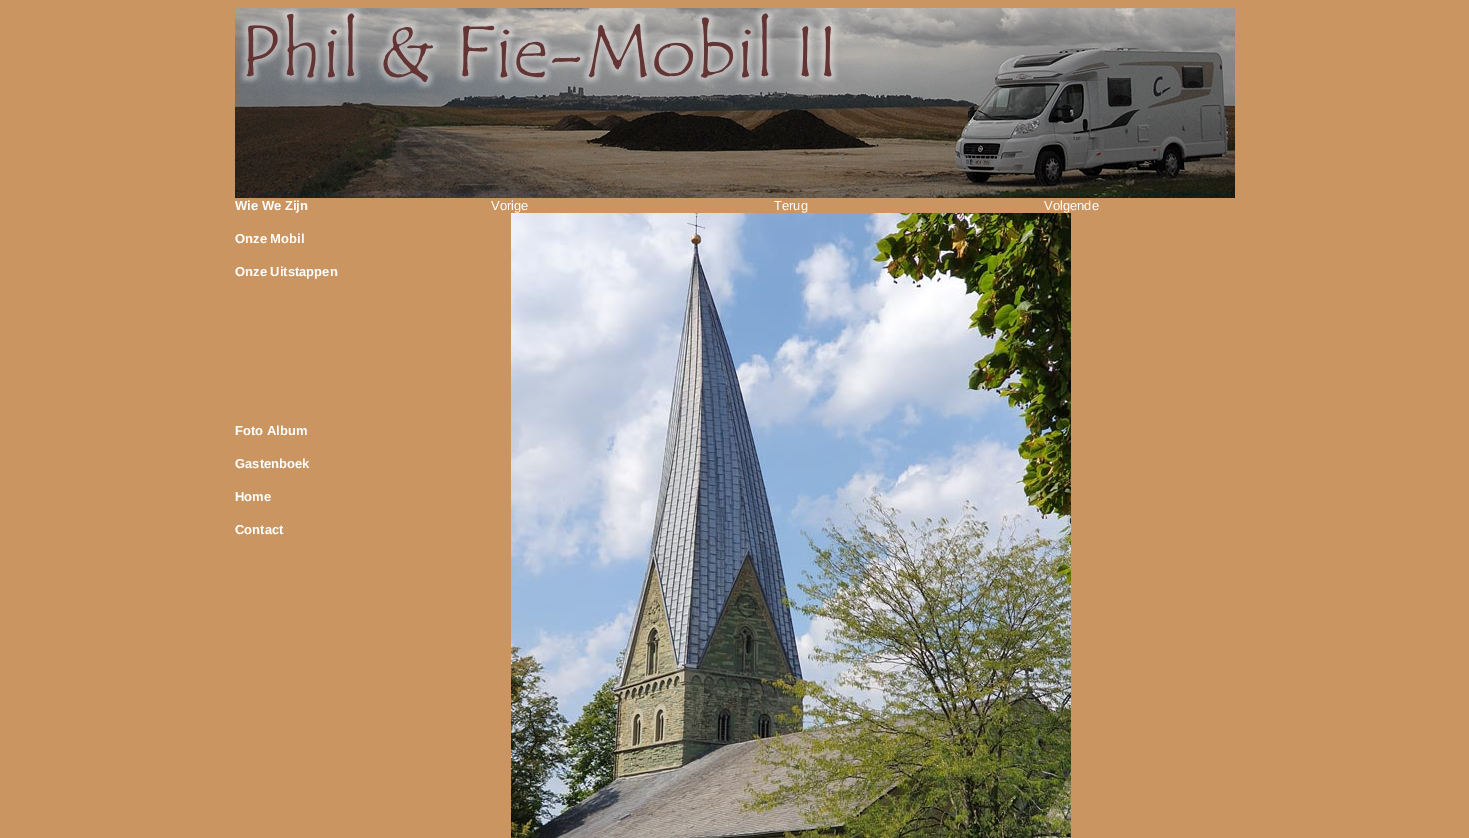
%!PS
<< /PageSize [1469 838] >> setpagedevice
/C { dup -16 bitshift 255 div exch dup -8 bitshift 255 and 255 div exch 255 and 255 div setrgbcolor } def
/F { [ exch dup neg 0 0 3 -1 roll 0 0 ] selectfont } def
/T { moveto show } def
/R { rectfill } def
/I { 5 dict begin { /h /w /y /x /name } { exch def } forall
  gsave x y translate w h scale
  w h 8 [w 0 0 h 0 0] name (r) file false 3 colorimage grestore end } def
0 838 translate 1 -1 scale
4 setmiterlimit
16#CA9560 C
0 0 1469 838 R
(1.rgb) 235 8 1000 190 I
/LiberationSans-Bold 13 F
16#FFFFFF C
(Wie We Zijn) 235 210 T
(Onze Mobil) 235 243 T
(Onze Uitstappen) 235 276 T
(Foto Album) 235 435 T
(Gastenboek) 235 468 T
(Home) 235 501 T
(Contact) 235 534 T
/LiberationSans-Regular 13 F
(Vorige) 491 210 T
(Terug) 774 210 T
(Volgende) 1044 210 T
(2.rgb) 511 213 560 625 I
showpage
